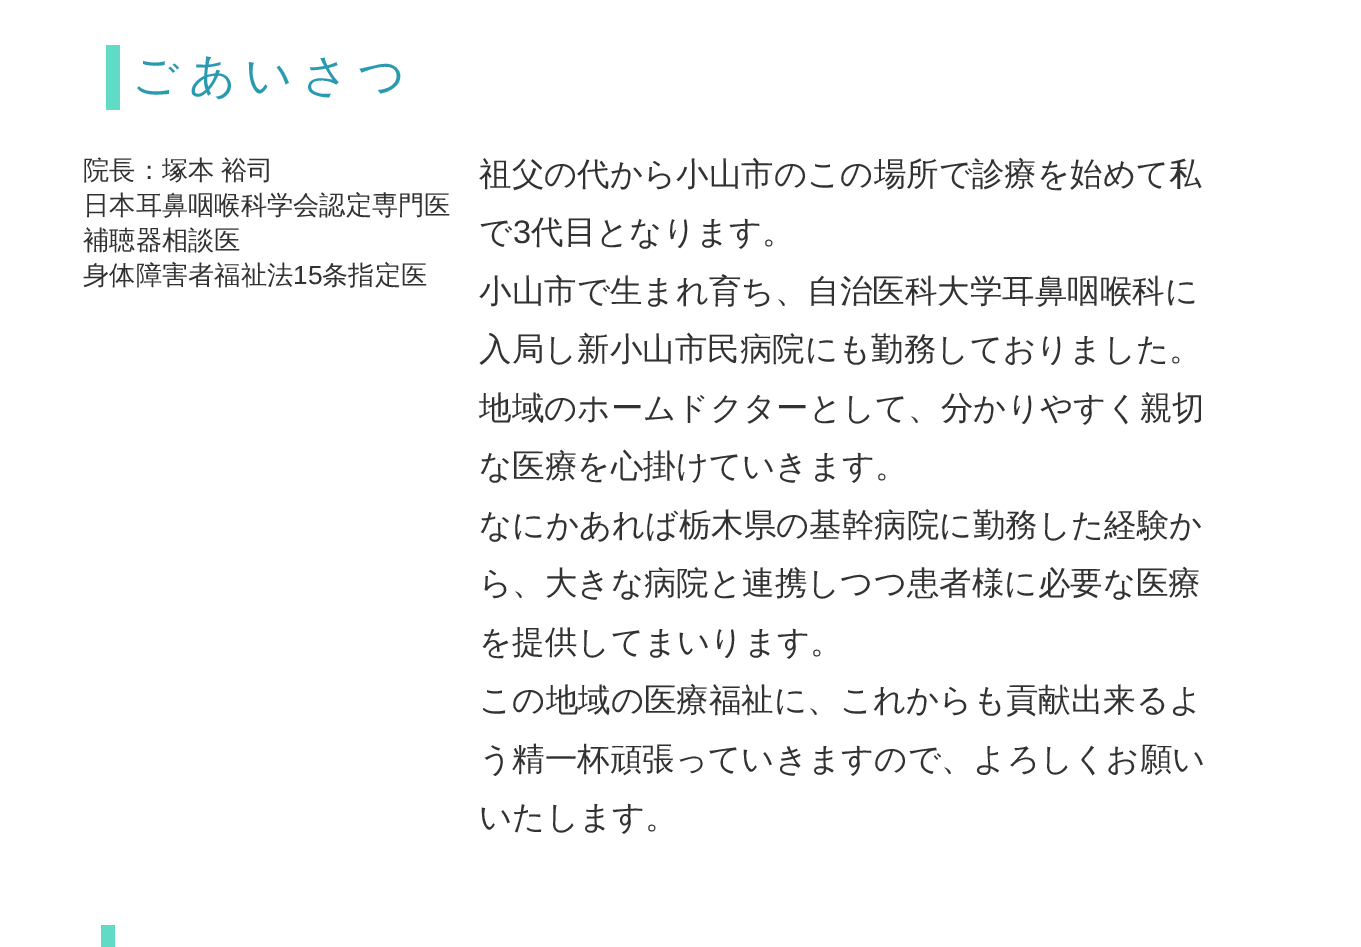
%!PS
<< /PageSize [1361 947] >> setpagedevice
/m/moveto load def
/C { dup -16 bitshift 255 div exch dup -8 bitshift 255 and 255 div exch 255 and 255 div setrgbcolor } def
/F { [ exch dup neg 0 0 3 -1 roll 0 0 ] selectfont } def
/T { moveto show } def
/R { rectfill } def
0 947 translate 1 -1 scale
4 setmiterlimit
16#FFFFFF C
0 0 1361 947 R
16#60DBC5 C
106 45 14 65 R
/WenQuanYiZenHei-Medium 46.25 F
16#2A9AB0 C
132 91 m 9.25 0 (ごあいさつ) ashow
/WenQuanYiZenHei-Medium 26.25 F
16#323232 C
83 179 m -1 0 32 (院長：塚本 裕司) widthshow
(日本耳鼻咽喉科学会認定専門医) 83 214 T
(補聴器相談医) 83 249 T
(身体障害者福祉法) 83 284 T
/LiberationSans-Regular 26.25 F
(15) 293 284 T
/WenQuanYiZenHei-Medium 26.25 F
(条指定医) 322 284 T
/WenQuanYiZenHei-Medium 32.5 F
(祖父の代から小山市のこの場所で診療を始めて私) 479 185 T
(で) 479 243 T
/LiberationSans-Regular 32.5 F
(3) 513 243 T
/WenQuanYiZenHei-Medium 32.5 F
(代目となります。) 531 243 T
(小山市で生まれ育ち、自治医科大学耳鼻咽喉科に) 479 302 T
(入局し新小山市民病院にも勤務しておりました。) 479 360 T
(地域のホームドクターとして、分かりやすく親切) 479 419 T
(な医療を心掛けていきます。) 479 477 T
(なにかあれば栃木県の基幹病院に勤務した経験か) 479 536 T
(ら、大きな病院と連携しつつ患者様に必要な医療) 479 594 T
(を提供してまいります。) 479 653 T
(この地域の医療福祉に、これからも貢献出来るよ) 479 711 T
(う精一杯頑張っていきますので、よろしくお願い) 479 770 T
(いたします。) 479 828 T
16#60DBC5 C
101 925 14 22 R
showpage
